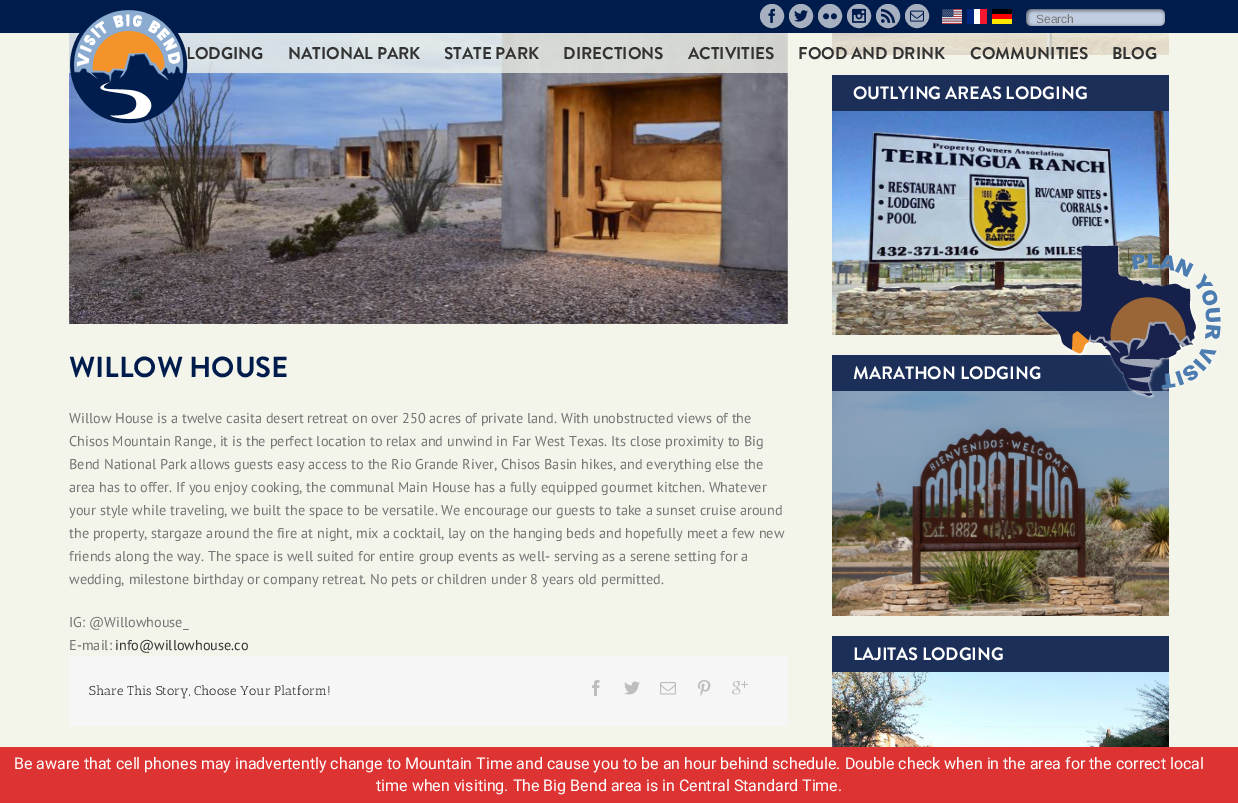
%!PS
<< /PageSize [1238 803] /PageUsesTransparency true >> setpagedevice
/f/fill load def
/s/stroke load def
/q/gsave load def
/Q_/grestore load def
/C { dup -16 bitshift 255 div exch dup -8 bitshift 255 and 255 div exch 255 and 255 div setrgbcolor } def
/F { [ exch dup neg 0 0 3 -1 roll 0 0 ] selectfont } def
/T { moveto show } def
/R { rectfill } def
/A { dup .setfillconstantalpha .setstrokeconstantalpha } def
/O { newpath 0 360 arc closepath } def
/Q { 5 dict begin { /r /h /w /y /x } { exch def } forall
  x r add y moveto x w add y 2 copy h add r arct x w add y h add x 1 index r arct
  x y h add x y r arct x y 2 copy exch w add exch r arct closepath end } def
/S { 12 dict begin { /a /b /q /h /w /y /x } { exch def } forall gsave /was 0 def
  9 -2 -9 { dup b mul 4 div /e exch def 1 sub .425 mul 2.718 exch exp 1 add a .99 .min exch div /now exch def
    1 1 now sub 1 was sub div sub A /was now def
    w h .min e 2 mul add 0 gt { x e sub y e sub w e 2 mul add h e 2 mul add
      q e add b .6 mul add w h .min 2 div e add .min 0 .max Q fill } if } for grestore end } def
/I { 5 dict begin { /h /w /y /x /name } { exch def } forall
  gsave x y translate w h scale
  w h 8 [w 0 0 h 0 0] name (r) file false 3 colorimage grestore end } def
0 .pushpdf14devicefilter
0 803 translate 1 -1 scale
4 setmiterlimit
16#F3F5EB C
0 0 1238 803 R
16#001C4C C
0 0 1238 33 R
16#000000 C
760 5 24 24 12 .5 .2 S
16#A6B0C1 C
772 16 11.5 O q f Q_
s
(1.rgb) 768 8 8 15 I
16#000000 C
789 5 24 24 12 .5 .2 S
16#A6B0C1 C
801 16 11.5 O q f Q_
s
(2.rgb) 794 10 14 12 I
16#000000 C
818 5 24 24 12 .5 .2 S
16#A6B0C1 C
830 16 11.5 O q f Q_
s
(3.rgb) 823 13 14 7 I
16#000000 C
847 5 24 24 12 .5 .2 S
16#A6B0C1 C
859 16 11.5 O q f Q_
s
(4.rgb) 852 8 14 15 I
16#000000 C
876 5 24 24 12 .5 .2 S
16#A6B0C1 C
888 16 11.5 O q f Q_
s
(5.rgb) 881 8 14 15 I
16#000000 C
905 5 24 24 12 .5 .2 S
16#A6B0C1 C
917 16 11.5 O q f Q_
s
(6.rgb) 910 10 14 12 I
(7.rgb) 942 9 20 15 I
16#FFFFFF C
974 9 6 15 R
16#00267F C
967 9 7 15 R
16#F31830 C
980 9 7 15 R
16#FFE600 C
992 19 20 5 R
16#000000 C
992 9 20 5 R
16#FF0000 C
992 14 20 5 R
(8.rgb) 1026 9 139 17 I
/LiberationSans-Regular 12 F
16#747474 C
(Search) 1036 23 T
(10.rgb) 69 33 719 291 I
(16.rgb) 832 33 337 22 I
0.75 A
16#F3F5EB C
69 33 1100 40 R
/BrandonGrotesque-Bold 17 F
1 A
16#333333 C
(LODGING) 186 59 T
(9.rgb) 70 10 118 114 I
(NATIONAL PARK) 288 59 T
(STATE PARK) 444 59 T
(DIRECTIONS) 563 59 T
(ACTIVITIES) 688 59 T
(FOOD AND DRINK) 798 59 T
(COMMUNITIES) 970 59 T
(BLOG) 1112 59 T
/BrandonGrotesque-Bold 29 F
16#001C4C C
(WILLOW HOUSE) 69 377 T
/PTSans-Regular 14.3 F
16#747474 C
(Willow House is a twelve casita desert retreat on over 250 acres of private land. With unobstructed views of the) 69 423 T
(Chisos Mountain Range, it is the perfect location to relax and unwind in Far West Texas. Its close proximity to Big) 69 446 T
(Bend National Park allows guests easy access to the Rio Grande River, Chisos Basin hikes, and everything else the) 69 469 T
(area has to offer. If you enjoy cooking, the communal Main House has a fully equipped gourmet kitchen. Whatever) 69 492 T
(your style while traveling, we built the space to be versatile. We encourage our guests to take a sunset cruise around) 69 515 T
(the property, stargaze around the fire at night, mix a cocktail, lay on the hanging beds and hopefully meet a few new) 69 538 T
(friends along the way. The space is well suited for entire group events as well- serving as a serene setting for a) 69 561 T
(wedding, milestone birthday or company retreat. No pets or children under 8 years old permitted.) 69 584 T
(IG: @Willowhouse_) 69 627 T
(E-mail:) 69 650 T
16#333333 C
(info@willowhouse.co) 115 650 T
16#F6F6F6 C
69 656 719 70 R
/AnticSlab-Regular 13 F
16#333333 C
(Share This Story, Choose Your Platform!) 89 695 T
(11.rgb) 592 680 8 16 I
(12.rgb) 624 681 16 14 I
(13.rgb) 660 682 16 13 I
(14.rgb) 697 680 14 16 I
(15.rgb) 732 681 16 14 I
16#1B2F58 C
832 75 337 36 R
/BrandonGrotesque-Bold 18 F
16#FFFFFF C
(OUTLYING AREAS LODGING) 853 99 T
(17.rgb) 832 111 337 224 I
16#1B2F58 C
832 355 337 36 R
16#FFFFFF C
(MARATHON LODGING) 853 379 T
(18.rgb) 832 391 337 225 I
16#1B2F58 C
832 636 337 36 R
16#FFFFFF C
(LAJITAS LODGING) 853 660 T
(19.rgb) 832 672 337 75 I
(20.rgb) 1036 244 185 155 I
16#DD3333 C
0 747 1238 56 R
/Roboto-Regular 16 F
16#FFFFFF C
(Be aware that cell phones may inadvertently change to Mountain Time and cause you to be an hour behind schedule. Double check when in the area for the correct local) 14 769 T
(time when visiting. The Big Bend area is in Central Standard Time.) 376 791 T
.poppdf14devicefilter showpage
